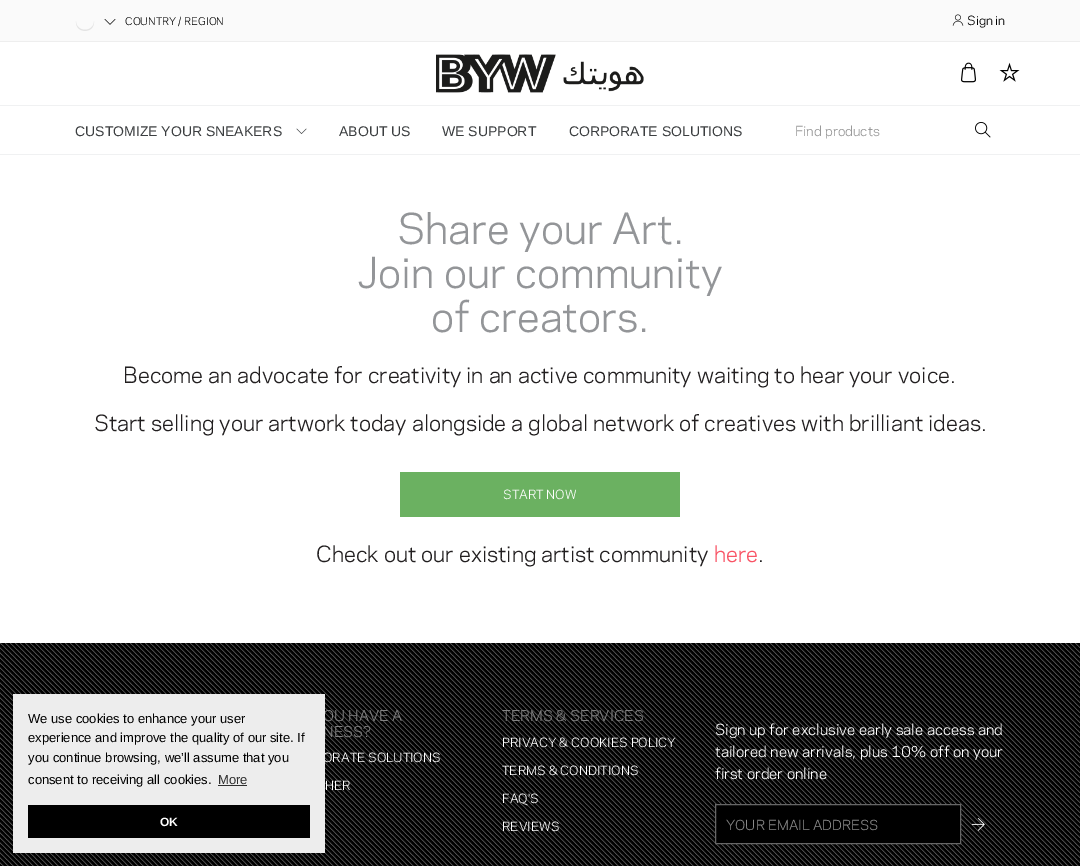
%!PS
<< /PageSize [1080 866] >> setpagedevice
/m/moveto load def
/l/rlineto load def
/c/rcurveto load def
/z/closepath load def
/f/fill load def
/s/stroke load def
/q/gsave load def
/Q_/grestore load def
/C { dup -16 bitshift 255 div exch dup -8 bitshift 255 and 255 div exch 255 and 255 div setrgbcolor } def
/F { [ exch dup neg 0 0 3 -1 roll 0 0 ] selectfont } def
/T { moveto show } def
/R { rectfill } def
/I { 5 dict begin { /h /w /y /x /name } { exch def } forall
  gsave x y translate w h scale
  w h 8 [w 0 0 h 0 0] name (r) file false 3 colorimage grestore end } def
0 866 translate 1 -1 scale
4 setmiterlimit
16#FFFFFF C
0 0 1080 866 R
16#FAFAFA C
0 0 1080 41 R
16#EEEEEE C
0 41 1080 1 R
16#E4E4E4 C
94 21.5 m -.5 11 -17.5 11 -18 0 c -.5 12.5 18.5 12.5 18 0 c z f
(1.rgb) 104 19 12 6 I
/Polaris-Regular 10 F
16#000000 C
(COUNTRY / REGION) 125 25 T
(2.rgb) 952 14 12 12 I
/Polaris-Regular 12 F
(Sign in) 967 25 T
(3.rgb) 436 54 208 39 I
(4.rgb) 961 62 15 21 I
(5.rgb) 999 62 21 20 I
16#F0F1F2 C
0 105 1080 1 R
0 154 1080 1 R
/LiberationSans-Regular 14 F
16#3B3E40 C
(CUSTOMIZE YOUR SNEAKERS) 75 136 T
(6.rgb) 296 128 11 6 I
(ABOUT US) 339 136 T
(WE SUPPORT) 442 136 T
(CORPORATE SOLUTIONS) 569 136 T
/Polaris-Regular 13 F
16#999999 C
(Find products) 795 136 T
(7.rgb) 975 122 16 16 I
/Polaris-Regular 40 F
16#939598 C
(Share your Art.) 397 244 T
(Join our community) 358 288 T
(of creators.) 431 332 T
/Polaris-Regular 21 F
16#221F20 C
(Become an advocate for creativity in an active community waiting to hear your voice.) 123 383 T
(Start selling your artwork today alongside a global network of creatives with brilliant ideas.) 94 431 T
16#6BB161 C
400 472 280 45 R
/Polaris-Regular 12 F
16#FFFFFF C
(START NOW) 503 499 T
/Polaris-Regular 21 F
16#221F20 C
(Check out our existing artist community) 316 562 T
16#F95365 C
(here) 714 562 T
16#221F20 C
(.) 758 562 T
(8.rgb) 0 643 1080 223 I
/Polaris-Regular 14 F
16#828282 C
(OU HAVE A) 323 721 T
(NESS?) 323 737 T
/Polaris-Regular 12 F
16#FFFFFF C
(ORATE SOLUTIONS) 323 762 T
(HER) 325 790 T
/Polaris-Regular 14 F
16#828282 C
(TERMS & SERVICES) 502 721 T
/Polaris-Regular 12 F
16#FFFFFF C
(PRIVACY & COOKIES POLICY) 502 747 T
(TERMS & CONDITIONS) 502 775 T
(FAQ'S) 502 803 T
(REVIEWS) 502 831 T
/Polaris-Regular 14.4 F
(Sign up for exclusive early sale access and) 715 735 T
(tailored new arrivals, plus 10% off on your) 715 757 T
(first order online) 715 779 T
16#000000 C
715.5 804.5 m 245 0 l 0 39 l -245 0 l z q f Q_
16#676767 C
s
/Polaris-Regular 13 F
16#8A8A8A C
(YOUR EMAIL ADDRESS) 726 830 T
(9.rgb) 971 818 14 13 I
16#EDEDED C
13 694 312 159 R
/LiberationSans-Regular 13 F
16#000000 C
(We use cookies to enhance your user) 28 723 T
(experience and improve the quality of our site. If) 28 742 T
(you continue browsing, we’ll assume that you) 28 762 T
(consent to receiving all cookies.) 28 784 T
16#2F2F2F C
(More) 218 784 T
218 785 29 1 R
16#000000 C
28 805 282 33 R
/LiberationSans-Bold 12 F
16#FFFFFF C
(OK) 160 826 T
showpage
